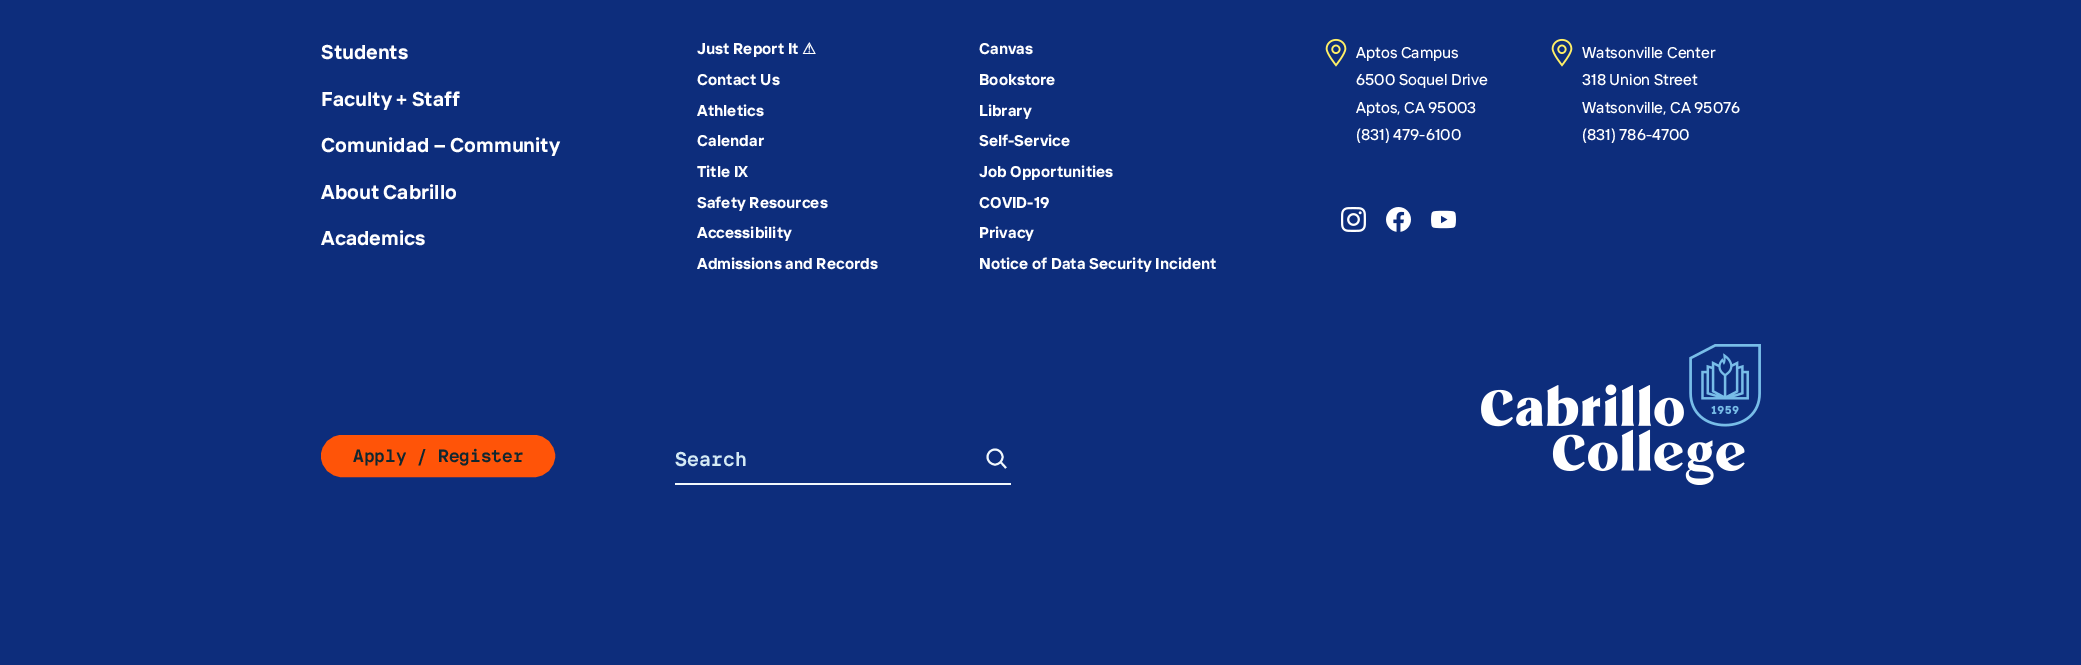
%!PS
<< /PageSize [2081 665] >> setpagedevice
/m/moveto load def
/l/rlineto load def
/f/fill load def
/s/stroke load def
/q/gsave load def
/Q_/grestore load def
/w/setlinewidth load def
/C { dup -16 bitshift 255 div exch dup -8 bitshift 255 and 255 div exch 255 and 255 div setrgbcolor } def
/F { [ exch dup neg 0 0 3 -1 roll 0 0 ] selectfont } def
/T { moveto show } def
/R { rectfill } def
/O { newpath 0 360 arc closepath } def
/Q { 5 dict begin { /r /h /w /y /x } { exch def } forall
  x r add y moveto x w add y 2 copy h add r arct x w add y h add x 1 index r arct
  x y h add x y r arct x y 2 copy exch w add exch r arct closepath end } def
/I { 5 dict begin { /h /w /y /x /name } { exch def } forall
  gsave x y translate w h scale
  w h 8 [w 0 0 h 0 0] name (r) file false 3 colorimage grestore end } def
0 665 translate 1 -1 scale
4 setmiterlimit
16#0D2D7C C
0 0 2081 665 R
/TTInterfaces-Bold 20 F
16#FFFFFF C
(Students) 321 59 T
(Faculty + Staff) 321 106 T
(Comunidad – Community) 321 152 T
(About Cabrillo) 321 199 T
(Academics) 321 245 T
/TTInterfaces-Bold 15.6 F
(Just Report It) 697 54 T
/DejaVuSans-Bold 15.6 F
(⚠) 802 54 T
/TTInterfaces-Bold 15.6 F
(Canvas) 979 54 T
(Contact Us) 697 85 T
(Bookstore) 979 85 T
(Athletics) 697 116 T
(Library) 979 116 T
(Calendar) 697 146 T
(Self-Service) 979 146 T
(Title IX) 697 177 T
(Job Opportunities) 979 177 T
(Safety Resources) 697 208 T
(COVID-19) 979 208 T
(Accessibility) 697 238 T
(Privacy) 979 238 T
(Admissions and Records) 697 269 T
(Notice of Data Security Incident) 979 269 T
(1.rgb) 1325 38 22 29 I
/TTInterfaces-Medium 15.6 F
(Aptos Campus) 1356 58 T
(6500 Soquel Drive) 1356 85 T
(Aptos, CA 95003) 1356 113 T
(\(831\) 479-6100) 1356 140 T
(1.rgb) 1551 38 22 29 I
(Watsonville Center) 1582 58 T
(318 Union Street) 1582 85 T
(Watsonville, CA 95076) 1582 113 T
(\(831\) 786-4700) 1582 140 T
(2.rgb) 1341 207 25 25 I
(3.rgb) 1386 207 25 25 I
(4.rgb) 1431 210 25 19 I
16#FF5408 C
322 436 232 40 20 Q q f Q_
2 w
s
/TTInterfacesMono-Bold 17.75 F
16#102730 C
(Apply / Register) 353 462 T
16#F1F8FD C
675 483 336 2 R
/TTInterfacesMono-Bold 20 F
16#D3E9F4 C
(Search) 675 466 T
16#F1F8FD C
1.9 w
995 457 7.5 O s
1001 462.5 m 5 5.5 l s
(5.rgb) 1481 344 280 141 I
showpage
